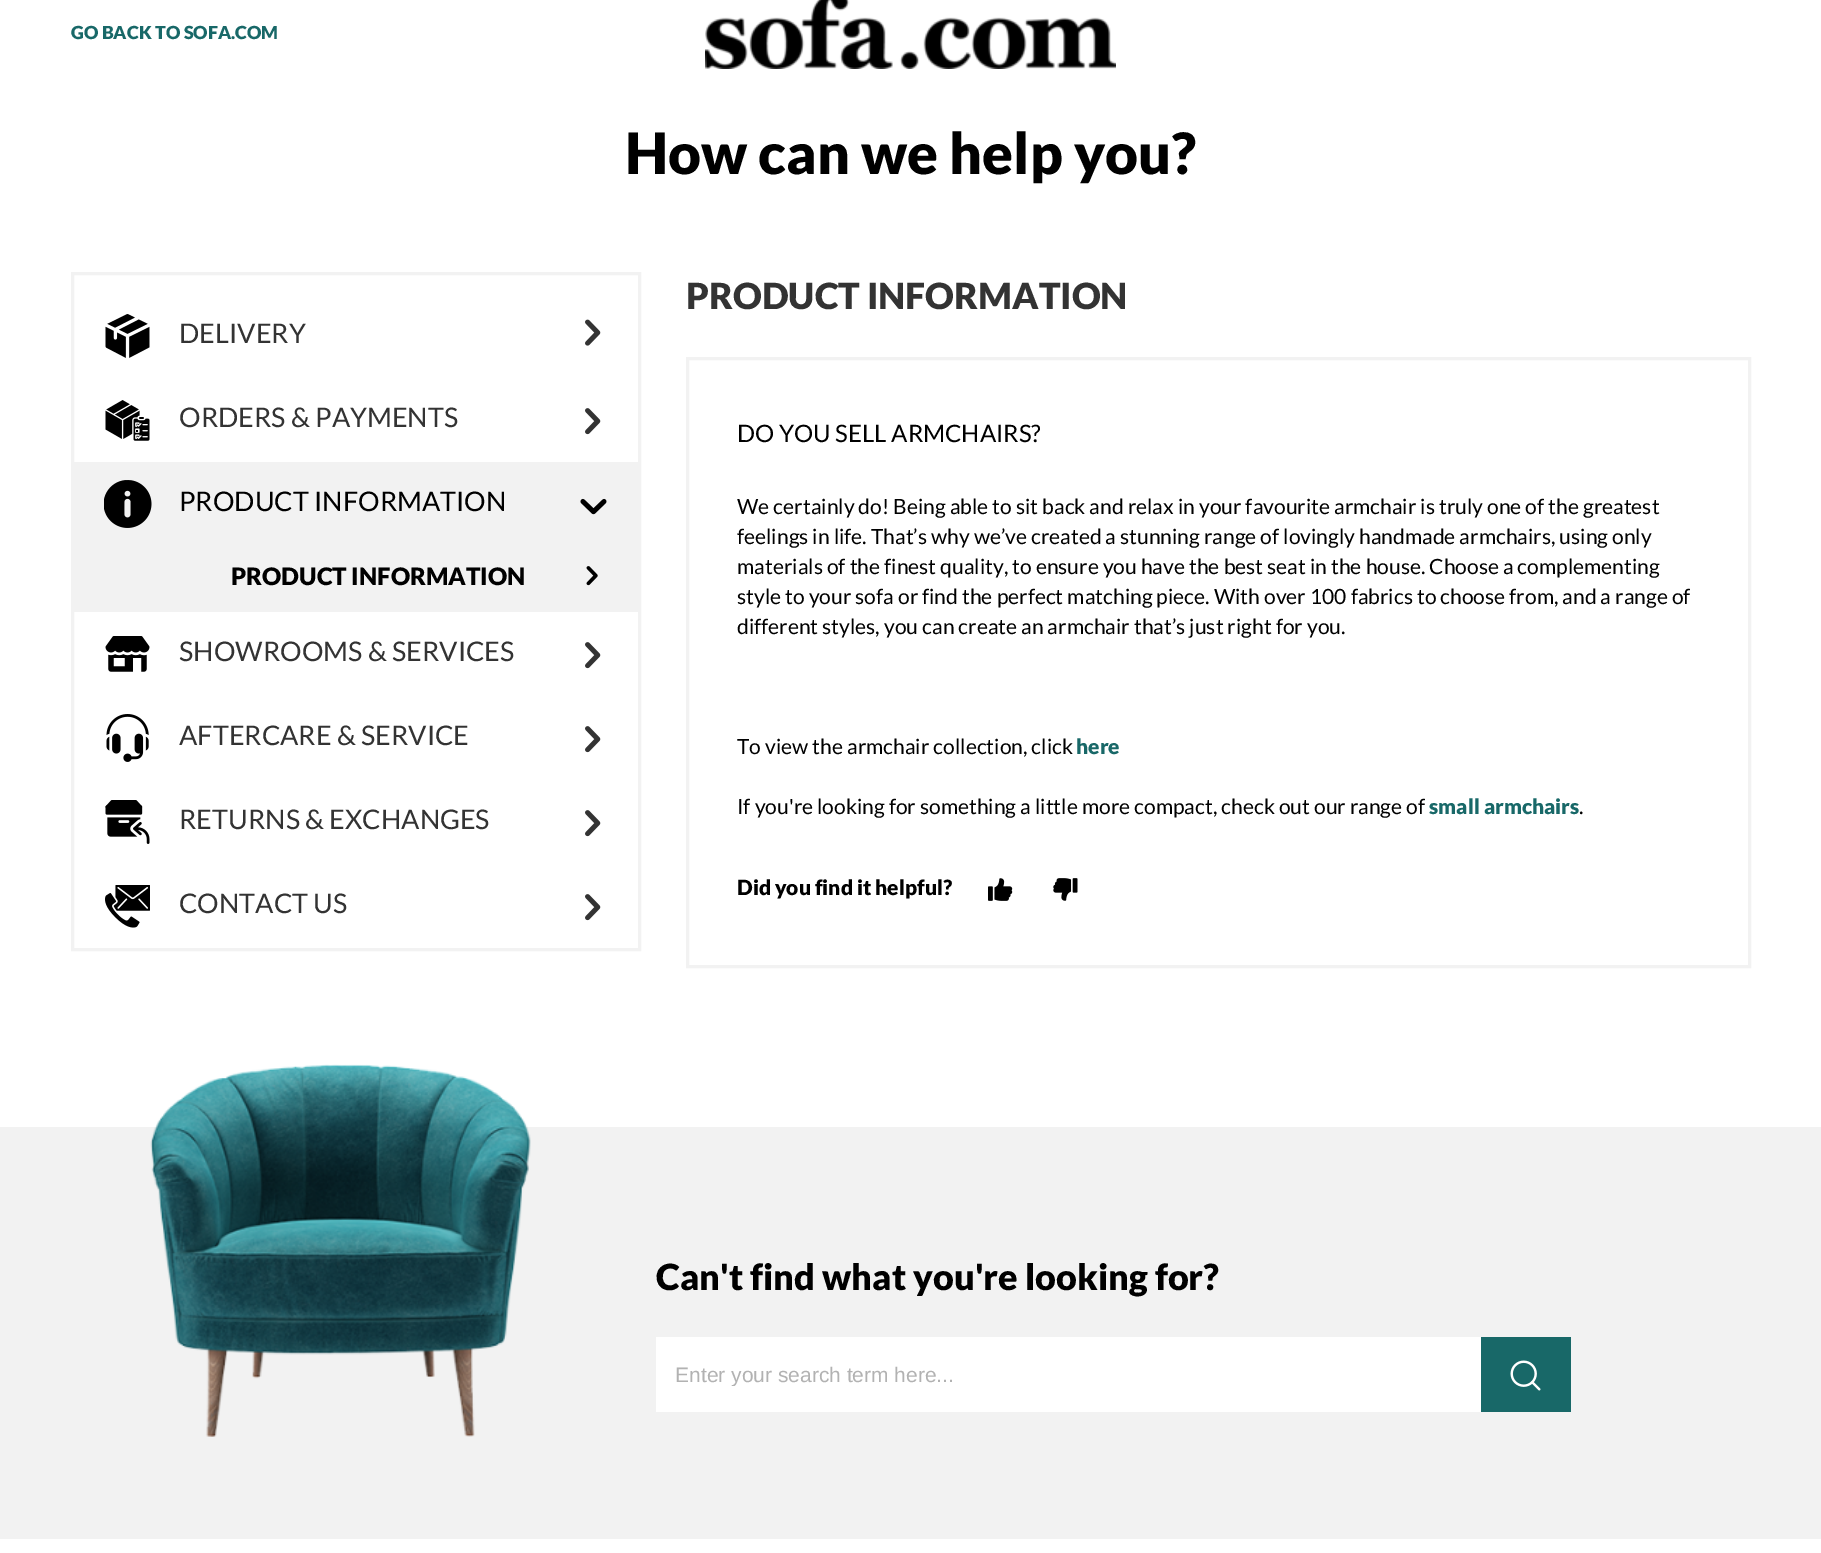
%!PS
<< /PageSize [1821 1553] >> setpagedevice
/q/gsave load def
/Q_/grestore load def
/w/setlinewidth load def
/C { dup -16 bitshift 255 div exch dup -8 bitshift 255 and 255 div exch 255 and 255 div setrgbcolor } def
/F { [ exch dup neg 0 0 3 -1 roll 0 0 ] selectfont } def
/T { moveto show } def
/R { rectfill } def
/I { 5 dict begin { /h /w /y /x /name } { exch def } forall
  gsave x y translate w h scale
  w h 8 [w 0 0 h 0 0] name (r) file false 3 colorimage grestore end } def
0 1553 translate 1 -1 scale
4 setmiterlimit
16#FFFFFF C
0 0 1821 1553 R
/Lato-Black 18 F
16#186868 C
(GO BACK TO SOFA.COM) 71 39 T
(1.rgb) 705 0 411 69 I
/Lato-Black 57 F
16#000000 C
(How can we help you?) 625 174 T
16#F2F2F2 C
3 w
72.5 273.5 567 676 rectstroke
(2.rgb) 105 314 45 44 I
/Lato-Regular 27 F
16#333333 C
(DELIVERY) 179 343 T
(3.rgb) 585 319 16 27 I
(4.rgb) 105 400 45 41 I
(ORDERS & PAYMENTS) 179 427 T
(5.rgb) 585 408 16 27 I
16#F2F2F2 C
74 462 564 150 R
(6.rgb) 104 480 48 48 I
16#000000 C
(PRODUCT INFORMATION) 179 511 T
(7.rgb) 580 498 27 17 I
/Lato-Black 24 F
(PRODUCT INFORMATION) 231 585 T
(8.rgb) 586 566 12 20 I
(9.rgb) 105 636 45 36 I
/Lato-Regular 27 F
16#333333 C
(SHOWROOMS & SERVICES) 179 661 T
(5.rgb) 585 642 16 27 I
(10.rgb) 106 714 43 48 I
(AFTERCARE & SERVICE) 179 745 T
(5.rgb) 585 726 16 27 I
(11.rgb) 105 800 45 44 I
(RETURNS & EXCHANGES) 179 829 T
(5.rgb) 585 810 16 27 I
(12.rgb) 105 885 45 43 I
(CONTACT US) 179 913 T
(5.rgb) 585 894 16 27 I
/Lato-Black 36 F
(PRODUCT INFORMATION) 686 309 T
16#F2F2F2 C
687.5 358.5 1062 608 rectstroke
/Lato-Regular 24 F
16#000000 C
(DO YOU SELL ARMCHAIRS?) 737 442 T
/Lato-Regular 21 F
(We certainly do! Being able to sit back and relax in your favourite armchair is truly one of the greatest) 737 514 T
(feelings in life. That’s why we’ve created a stunning range of lovingly handmade armchairs, using only) 737 544 T
(materials of the finest quality, to ensure you have the best seat in the house. Choose a complementing) 737 574 T
(style to your sofa or find the perfect matching piece. With over 100 fabrics to choose from, and a range of) 737 604 T
(different styles, you can create an armchair that’s just right for you.) 737 634 T
(To view the armchair collection, click) 737 754 T
/Lato-Black 21 F
16#186868 C
(here) 1076 754 T
/Lato-Regular 21 F
16#000000 C
(If you're looking for something a little more compact, check out our range of) 737 814 T
/Lato-Black 21 F
16#186868 C
(small armchairs) 1429 814 T
/Lato-Regular 21 F
16#000000 C
(.) 1579 814 T
/Lato-Black 21 F
(Did you find it helpful?) 737 895 T
(13.rgb) 988 878 25 23 I
(14.rgb) 1053 878 25 23 I
16#F2F2F2 C
0 1127 1821 412 R
(15.rgb) 150 1064 381 373 I
/Lato-Black 36 F
16#000000 C
(Can't find what you're looking for?) 656 1290 T
16#FFFFFF C
656 1337 825 75 R
q
675 1362 786 24 rectclip
/LiberationSans-Regular 21 F
16#B2B2B2 C
(Enter your search term here...) 675 1382 T
Q_
16#186868 C
1481 1337 90 75 R
(16.rgb) 1510 1360 31 31 I
showpage
